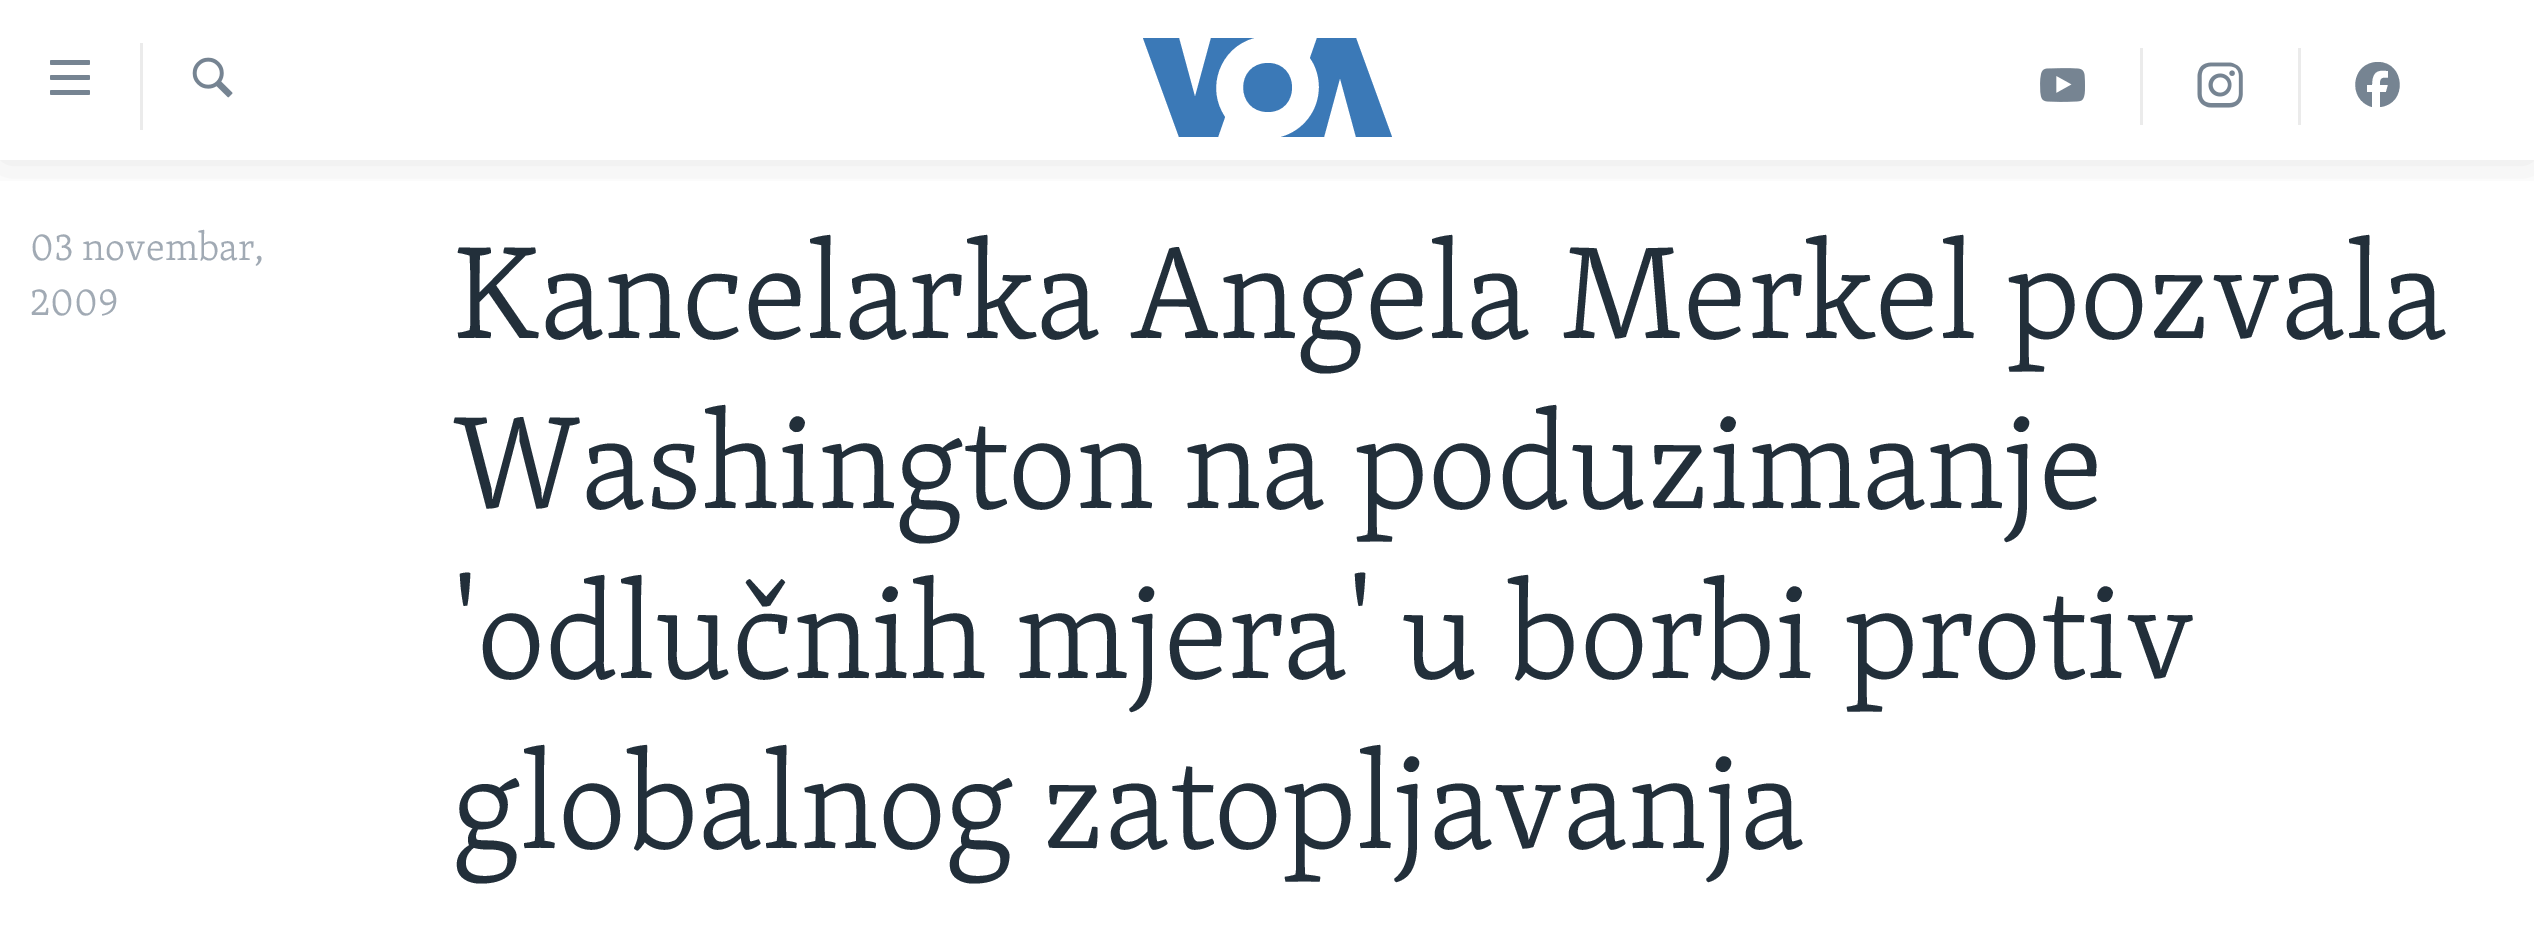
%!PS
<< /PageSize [2534 937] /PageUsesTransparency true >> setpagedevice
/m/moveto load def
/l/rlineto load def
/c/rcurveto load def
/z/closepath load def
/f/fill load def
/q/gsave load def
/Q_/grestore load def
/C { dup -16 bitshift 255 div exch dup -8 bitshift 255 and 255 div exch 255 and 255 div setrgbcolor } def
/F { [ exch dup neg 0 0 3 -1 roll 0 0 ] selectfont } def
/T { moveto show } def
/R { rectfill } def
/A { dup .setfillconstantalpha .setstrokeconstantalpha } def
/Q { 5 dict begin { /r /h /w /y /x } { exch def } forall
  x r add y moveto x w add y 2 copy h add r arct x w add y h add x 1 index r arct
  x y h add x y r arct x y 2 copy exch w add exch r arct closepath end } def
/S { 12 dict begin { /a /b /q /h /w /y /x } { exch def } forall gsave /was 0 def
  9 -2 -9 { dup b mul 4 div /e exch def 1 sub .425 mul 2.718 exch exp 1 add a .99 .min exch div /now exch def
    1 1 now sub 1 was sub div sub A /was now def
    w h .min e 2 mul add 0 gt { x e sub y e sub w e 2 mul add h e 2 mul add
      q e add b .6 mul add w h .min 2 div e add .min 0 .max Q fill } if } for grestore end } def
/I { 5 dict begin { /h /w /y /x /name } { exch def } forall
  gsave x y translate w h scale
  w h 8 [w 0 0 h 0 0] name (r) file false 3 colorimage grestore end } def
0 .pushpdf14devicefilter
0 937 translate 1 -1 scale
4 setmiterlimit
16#FFFFFF C
0 0 2534 937 R
q
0 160 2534 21 rectclip
16#000000 C
0 0 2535 160 0 25 .1 S
Q_
(1.rgb) 50 60 40 35 I
16#EBEBEB C
140 43 3 87 R
(2.rgb) 192 57 41 41 I
16#3B79B7 C
1225 117 m -7 20 l -39 0 l -36 -99 l 36 0 l 16 59 l 16 -59 l 43 0 l -34 9 -49 50 -29 79 c z 1268 63 m -33 0 -33 49 0 49 c 32 0 32 -49 0 -49 c z 1319 87 m 0 24 -16 44 -38 50 c 43 0 l 16 -59 l 16 59 l 36 0 l -36 -99 l -39 0 l -7 20 l 6 8 9 19 9 29 c z f
16#EBEBEB C
2140 48 3 77 R
(3.rgb) 2040 68 45 34 I
2298 48 3 77 R
(4.rgb) 2197 62 46 46 I
16#768492 C
2378 62 m -27 0 -31 38 -6 45 c 0 -15 l -5 0 l 0 -7 l 5 0 l 0 -12 4 -16 16 -14 c 0 7 l -7 -1 -8 1 -8 7 c 8 0 l -2 7 l -6 0 l 0 15 l 28 -3 25 -45 -2 -45 c z f
/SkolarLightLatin-Light 39.5 F
16#A1AAB4 C
(03 novembar,) 30 260 T
(2009) 30 315 T
/SkolarLightLatin-Light 135 F
16#222F3A C
(Kancelarka Angela Merkel pozvala) 453 338 T
(Washington na poduzimanje) 453 508 T
('odlučnih mjera' u borbi protiv) 453 678 T
(globalnog zatopljavanja) 453 848 T
.poppdf14devicefilter showpage
